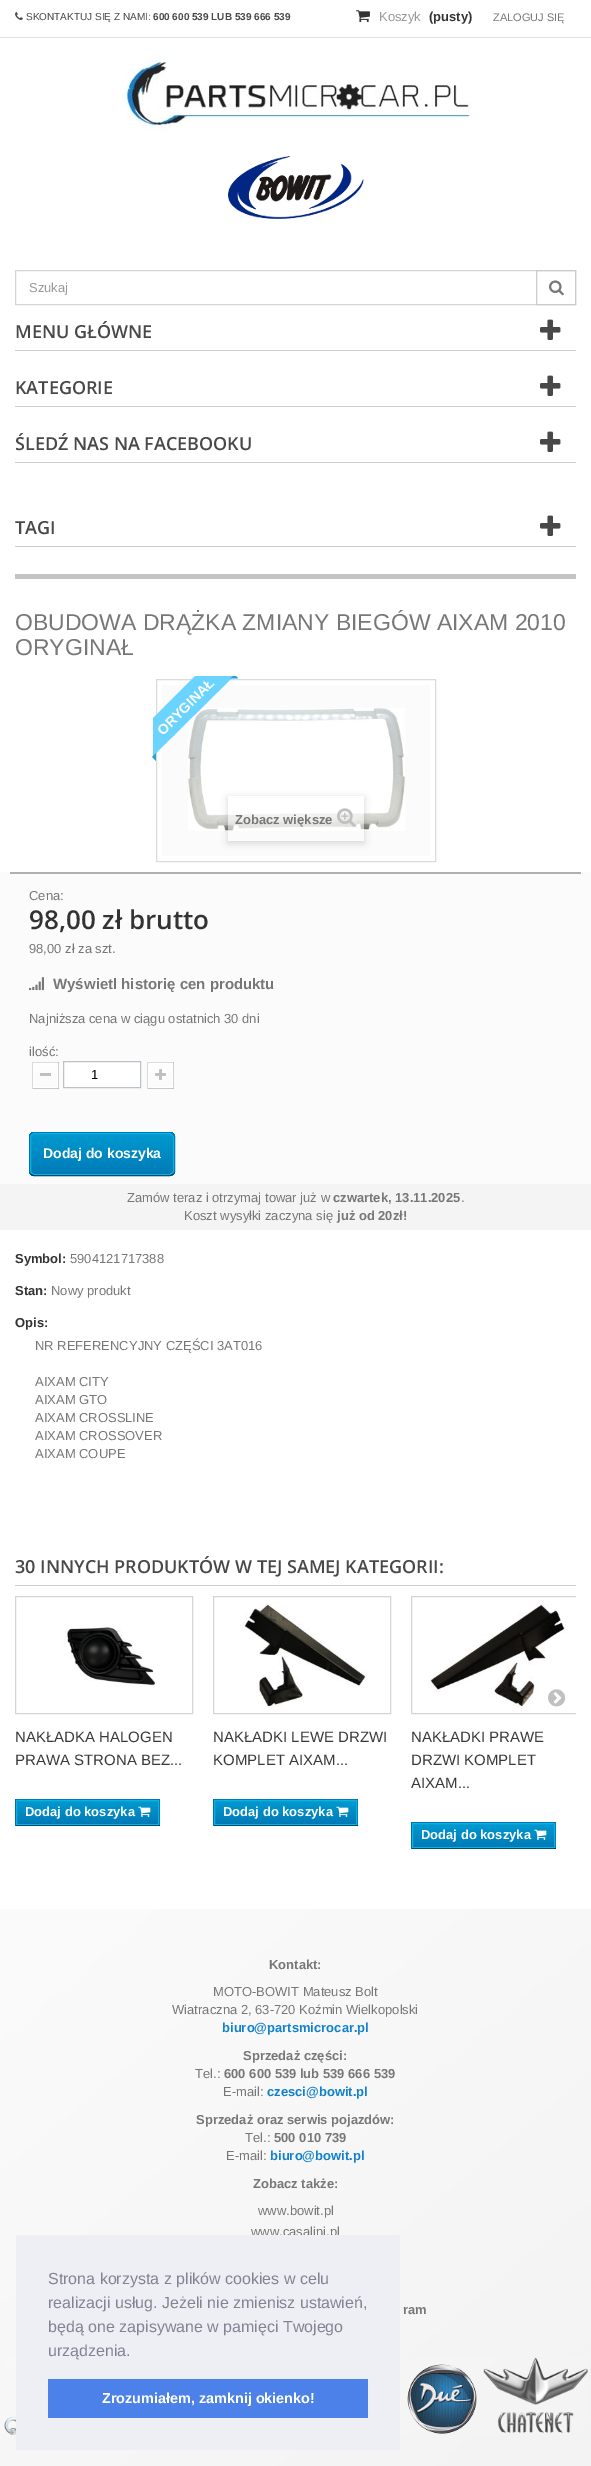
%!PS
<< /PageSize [591 2466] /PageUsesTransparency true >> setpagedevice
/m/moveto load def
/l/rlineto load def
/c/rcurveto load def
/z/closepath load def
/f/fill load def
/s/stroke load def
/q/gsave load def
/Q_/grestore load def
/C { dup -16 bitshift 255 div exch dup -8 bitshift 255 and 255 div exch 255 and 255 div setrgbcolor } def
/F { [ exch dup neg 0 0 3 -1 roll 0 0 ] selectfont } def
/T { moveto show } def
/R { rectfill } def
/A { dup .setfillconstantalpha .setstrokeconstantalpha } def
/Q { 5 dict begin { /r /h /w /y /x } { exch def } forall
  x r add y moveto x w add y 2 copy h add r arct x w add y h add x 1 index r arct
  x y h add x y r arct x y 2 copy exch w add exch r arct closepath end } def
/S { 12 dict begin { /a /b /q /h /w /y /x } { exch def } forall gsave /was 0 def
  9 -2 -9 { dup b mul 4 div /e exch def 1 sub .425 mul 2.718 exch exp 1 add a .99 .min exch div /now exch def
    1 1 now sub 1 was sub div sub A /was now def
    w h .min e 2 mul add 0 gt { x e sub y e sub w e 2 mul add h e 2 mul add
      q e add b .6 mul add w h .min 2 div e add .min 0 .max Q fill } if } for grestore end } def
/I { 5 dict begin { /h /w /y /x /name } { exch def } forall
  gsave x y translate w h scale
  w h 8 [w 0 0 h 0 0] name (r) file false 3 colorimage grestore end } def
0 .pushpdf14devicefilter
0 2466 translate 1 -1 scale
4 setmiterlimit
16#FFFFFF C
0 0 591 2466 R
16#DDDDDD C
0 37 591 1 R
(1.rgb) 15 12 8 8 I
/LiberationSans-Regular 10 F
16#484848 C
(SKONTAKTUJ SIĘ Z NAMI:) 26 20 T
/LiberationSans-Bold 10 F
(600 600 539 LUB 539 666 539) 153 20 T
(2.rgb) 356 10 14 13 I
/LiberationSans-Regular 13 F
16#999999 C
(Koszyk) 379 21 T
/LiberationSans-Bold 13 F
16#333333 C
(\(pusty\)) 429 21 T
/LiberationSans-Regular 11 F
16#777777 C
(ZALOGUJ SIĘ) 493 21 T
(3.rgb) 126 53 353 80 I
(4.rgb) 228 156 136 63 I
16#D6D4D4 C
15.5 270.5 560 34 rectstroke
/LiberationSans-Regular 13 F
16#999999 C
(Szukaj) 29 292 T
16#CCCCCC C
536.5 270.5 39 34 rectstroke
(5.rgb) 549 280 15 16 I
15 350 561 1 R
/OpenSans-SemiBold 18 F
16#484848 C
(MENU GŁÓWNE) 15 338 T
(6.rgb) 540 319 21 21 I
16#CCCCCC C
15 406 561 1 R
16#484848 C
(KATEGORIE) 15 394 T
(6.rgb) 540 375 21 21 I
16#CCCCCC C
15 462 561 1 R
16#484848 C
(ŚLEDŹ NAS NA FACEBOOKU) 15 450 T
(6.rgb) 540 431 21 21 I
16#CCCCCC C
15 546 561 1 R
16#484848 C
(TAGI) 15 534 T
(6.rgb) 540 515 21 21 I
16#C4C4C4 C
15 574 561 5 R
/LiberationSans-Regular 23 F
16#777777 C
(OBUDOWA DRĄŻKA ZMIANY BIEGÓW AIXAM 2010) 15 630 T
(ORYGINAŁ) 15 655 T
16#DBDBDB C
156.5 679.5 279 182 rectstroke
16#FBFBFB C
162 685 268 171 R
(7.rgb) 188 708 217 123 I
q
153 676 85 85 rectclip
16#6AD4FF C
129 742 m 92 -92 l 19 20 l -92 91 l z f
16#21A3D8 C
238.5 678.5 m -8 0 l 4 -4 l z f
Q_
/LiberationSans-Bold 14 F
16#FFFFFF C
q 163 736 translate -45 rotate 0 0 m (ORYGINAŁ) show Q_
16#21A3D8 C
156 753 m 0 8 l -4 -4 l z f
q
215 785 m 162 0 l 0 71 l -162 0 l z 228 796 m 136 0 l 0 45 l -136 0 l z eoclip newpath
16#000000 C
228 798 136 45 0 4 .16 S
Q_
0.5 A
16#FFFFFF C
228 813 136 18 R
/LiberationSans-Bold 13 F
1 A
16#777777 C
(Zobacz większe) 235 824 T
(8.rgb) 337 808 19 19 I
16#FBFBFB C
0 872 591 312 R
16#B0AFAF C
10 872 571 2 R
/LiberationSans-Regular 13 F
16#777777 C
(Cena:) 29 900 T
/OpenSans-SemiBold 26 F
16#333333 C
(98,00 zł brutto) 29 929 T
/LiberationSans-Regular 13 F
16#777777 C
(98,00 zł za szt.) 29 953 T
(9.rgb) 29 977 15 14 I
/LiberationSans-Bold 15 F
(Wyświetl historię cen produktu) 53 989 T
/LiberationSans-Regular 13 F
(Najniższa cena w ciągu ostatnich 30 dni) 29 1023 T
(ilość:) 29 1056 T
16#DEDCDC C
32 1062 27 1 R
16#C1BFBF C
58 1062 1 27 R
16#B5B4B4 C
32 1088 27 1 R
16#DAD8D8 C
32 1062 1 27 R
q 34 1064 m 23 0 l 0 9 l -23 0 l z clip newpath
<< /ShadingType 2 /ColorSpace /DeviceRGB /Coords [46 1064 46 1087] /Extend [true true] /Function << /FunctionType 2 /Domain [0 1] /C0 [1 1 1] /C1 [.984 .984 .984] /N 1 >> >> shfill Q_
16#FFFFFF C
33.5 1063.5 24 24 rectstroke
16#C0C0C0 C
40 1073 11 3 R
16#FFFFFF C
63.5 1061.5 m 77 0 l 0 26 l -77 0 l z q f Q_
16#BDC2C9 C
s
16#000000 C
(1) 91 1079 T
16#DEDCDC C
147 1062 27 1 R
16#C1BFBF C
173 1062 1 27 R
16#B5B4B4 C
147 1088 27 1 R
16#DAD8D8 C
147 1062 1 27 R
q 149 1064 m 23 0 l 0 9 l -23 0 l z clip newpath
<< /ShadingType 2 /ColorSpace /DeviceRGB /Coords [161 1064 161 1087] /Extend [true true] /Function << /FunctionType 2 /Domain [0 1] /C0 [1 1 1] /C1 [.984 .984 .984] /N 1 >> >> shfill Q_
16#FFFFFF C
148.5 1063.5 24 24 rectstroke
(10.rgb) 155 1069 11 11 I
q
29 1132 146 44 5 Q clip newpath
q 29 1132 m 146 0 l 0 1 l -146 0 l z clip newpath
<< /ShadingType 2 /ColorSpace /DeviceRGB /Coords [102 1091 102 1133] /Extend [true true] /Function << /FunctionType 2 /Domain [0 1] /C0 [0 .604 .816] /C1 [0 .478 .718] /N 1 >> >> shfill Q_
q 29 1133 m 146 0 l 0 42 l -146 0 l z clip newpath
<< /ShadingType 2 /ColorSpace /DeviceRGB /Coords [102 1133 102 1175] /Extend [true true] /Function << /FunctionType 2 /Domain [0 1] /C0 [0 .604 .816] /C1 [0 .478 .718] /N 1 >> >> shfill Q_
q 29 1175 m 146 0 l 0 1 l -146 0 l z clip newpath
<< /ShadingType 2 /ColorSpace /DeviceRGB /Coords [102 1175 102 1217] /Extend [true true] /Function << /FunctionType 2 /Domain [0 1] /C0 [0 .604 .816] /C1 [0 .478 .718] /N 1 >> >> shfill Q_
Q_
16#0079B6 C
31 1134 m 3 -1.5 l 136.5 0 l 2.5 1.5 l s
16#006FA8 C
173 1134 m 1 .5 1.5 2 1.5 3 c 0 34 l 0 1 -.5 2.5 -1.5 3 c s
16#012740 C
173 1174 m -3 1.5 l -136.5 0 l -2.5 -1.5 l s
16#006FA8 C
31 1174 m -1 -.5 -1.5 -2 -1.5 -3 c 0 -34 l 0 -1 .5 -2.5 1.5 -3 c s
16#06B2E6 C
30.5 1133.5 143 41 4.5 Q s
/LiberationSans-Bold 14 F
16#FFFFFF C
(Dodaj do koszyka) 43 1158 T
16#F4F4F4 C
0 1184 591 46 R
/LiberationSans-Regular 13 F
16#777777 C
(Zamów teraz i otrzymaj towar już w) 127 1202 T
/LiberationSans-Bold 13 F
(czwartek, 13.11.2025) 333 1202 T
/LiberationSans-Regular 13 F
(.) 461 1202 T
(Koszt wysyłki zaczyna się) 184 1220 T
/LiberationSans-Bold 13 F
(już od 20zł!) 337 1220 T
16#333333 C
(Symbol:) 15 1263 T
/LiberationSans-Regular 13 F
16#777777 C
(5904121717388) 70 1263 T
/LiberationSans-Bold 13 F
16#333333 C
(Stan:) 15 1295 T
/LiberationSans-Regular 13 F
16#777777 C
(Nowy produkt) 51 1295 T
/LiberationSans-Bold 13 F
16#333333 C
(Opis:) 15 1327 T
/LiberationSans-Regular 13 F
16#777777 C
(NR REFERENCYJNY CZĘŚCI 3AT016) 35 1350 T
(AIXAM CITY) 35 1386 T
(AIXAM GTO) 35 1404 T
(AIXAM CROSSLINE) 35 1422 T
(AIXAM CROSSOVER) 35 1440 T
(AIXAM COUPE) 35 1458 T
16#CCCCCC C
15 1585 561 1 R
/OpenSans-SemiBold 18 F
16#484848 C
(30 INNYCH PRODUKTÓW W TEJ SAMEJ KATEGORII:) 15 1573 T
q
15 1555 561 304 rectclip
16#D6D4D4 C
411.5 1596.5 177 117 rectstroke
Q_
(15.rgb) 428 1603 138 105 I
(11.rgb) 548 1689 18 18 I
16#D6D4D4 C
15.5 1596.5 177 117 rectstroke
(12.rgb) 63 1624 93 63 I
/LiberationSans-Regular 15 F
16#3A3939 C
(NAKŁADKA HALOGEN) 15 1742 T
(PRAWA STRONA BEZ...) 15 1765 T
16#0079B6 C
15 1799 145 1 R
16#006FA8 C
159 1799 1 27 R
16#012740 C
15 1825 145 1 R
16#006FA8 C
15 1799 1 27 R
q 17 1801 m 141 0 l 0 23 l -141 0 l z clip newpath
<< /ShadingType 2 /ColorSpace /DeviceRGB /Coords [88 1801 88 1824] /Extend [true true] /Function << /FunctionType 2 /Domain [0 1] /C0 [0 .604 .816] /C1 [0 .478 .718] /N 1 >> >> shfill Q_
16#06B2E6 C
16.5 1800.5 142 24 rectstroke
/LiberationSans-Bold 13 F
16#FFFFFF C
(Dodaj do koszyka) 25 1816 T
(13.rgb) 138 1806 13 11 I
16#D6D4D4 C
213.5 1596.5 177 117 rectstroke
(14.rgb) 240 1602 128 106 I
/LiberationSans-Regular 15 F
16#3A3939 C
(NAKŁADKI LEWE DRZWI) 213 1742 T
(KOMPLET AIXAM...) 213 1765 T
16#0079B6 C
213 1799 145 1 R
16#006FA8 C
357 1799 1 27 R
16#012740 C
213 1825 145 1 R
16#006FA8 C
213 1799 1 27 R
q 215 1801 m 141 0 l 0 23 l -141 0 l z clip newpath
<< /ShadingType 2 /ColorSpace /DeviceRGB /Coords [286 1801 286 1824] /Extend [true true] /Function << /FunctionType 2 /Domain [0 1] /C0 [0 .604 .816] /C1 [0 .478 .718] /N 1 >> >> shfill Q_
16#06B2E6 C
214.5 1800.5 142 24 rectstroke
/LiberationSans-Bold 13 F
16#FFFFFF C
(Dodaj do koszyka) 223 1816 T
(13.rgb) 336 1806 13 11 I
/LiberationSans-Regular 15 F
16#3A3939 C
(NAKŁADKI PRAWE) 411 1742 T
(DRZWI KOMPLET) 411 1765 T
(AIXAM...) 411 1788 T
16#0079B6 C
411 1822 145 1 R
16#006FA8 C
555 1822 1 27 R
16#012740 C
411 1848 145 1 R
16#006FA8 C
411 1822 1 27 R
q 413 1824 m 141 0 l 0 23 l -141 0 l z clip newpath
<< /ShadingType 2 /ColorSpace /DeviceRGB /Coords [484 1824 484 1847] /Extend [true true] /Function << /FunctionType 2 /Domain [0 1] /C0 [0 .604 .816] /C1 [0 .478 .718] /N 1 >> >> shfill Q_
16#06B2E6 C
412.5 1823.5 142 24 rectstroke
/LiberationSans-Bold 13 F
16#FFFFFF C
(Dodaj do koszyka) 421 1839 T
(13.rgb) 534 1829 13 11 I
q 0 1909 m 591 0 l 0 557 l -591 0 l z clip newpath
<< /ShadingType 2 /ColorSpace /DeviceRGB /Coords [559 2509 32 1882] /Extend [true true] /Function << /FunctionType 2 /Domain [0 1] /C0 [.953 .953 .953] /C1 [.984 .984 .984] /N 1 >> >> shfill Q_
16#777777 C
(Kontakt:) 269 1969 T
/LiberationSans-Regular 13 F
(MOTO-BOWIT Mateusz Bolt) 213 1996 T
(Wiatraczna 2, 63-720 Koźmin Wielkopolski) 172 2014 T
/LiberationSans-Bold 13 F
16#1081CF C
(biuro@partsmicrocar.pl) 222 2032 T
16#777777 C
(Sprzedaż części:) 243 2060 T
/LiberationSans-Regular 13 F
(Tel.:) 195 2078 T
/LiberationSans-Bold 13 F
(600 600 539 lub 539 666 539) 224 2078 T
/LiberationSans-Regular 13 F
(E-mail:) 223 2096 T
/LiberationSans-Bold 13 F
16#1081CF C
(czesci@bowit.pl) 267 2096 T
16#777777 C
(Sprzedaż oraz serwis pojazdów:) 196 2124 T
/LiberationSans-Regular 13 F
(Tel.:) 245 2142 T
/LiberationSans-Bold 13 F
(500 010 739) 274 2142 T
/LiberationSans-Regular 13 F
(E-mail:) 226 2160 T
/LiberationSans-Bold 13 F
16#1081CF C
(biuro@bowit.pl) 270 2160 T
16#777777 C
(Zobacz także:) 253 2188 T
/LiberationSans-Regular 13 F
(www.bowit.pl) 258 2215 T
(www.casalini.pl) 251 2236 T
/LiberationSans-Bold 13 F
(ram) 403 2314 T
(16.rgb) 4 2357 584 78 I
16#EDEFF5 C
16 2235 384 215 R
/LiberationSans-Regular 16 F
16#838391 C
(Strona korzysta z plików cookies w celu) 48 2284 T
(realizacji usług. Jeżeli nie zmienisz ustawień,) 48 2308 T
(będą one zapisywane w pamięci Twojego) 48 2332 T
(urządzenia.) 48 2356 T
16#4B81E8 C
48 2379 320 39 R
/LiberationSans-Bold 14.4 F
16#FFFFFF C
(Zrozumiałem, zamknij okienko!) 102 2403 T
.poppdf14devicefilter showpage
